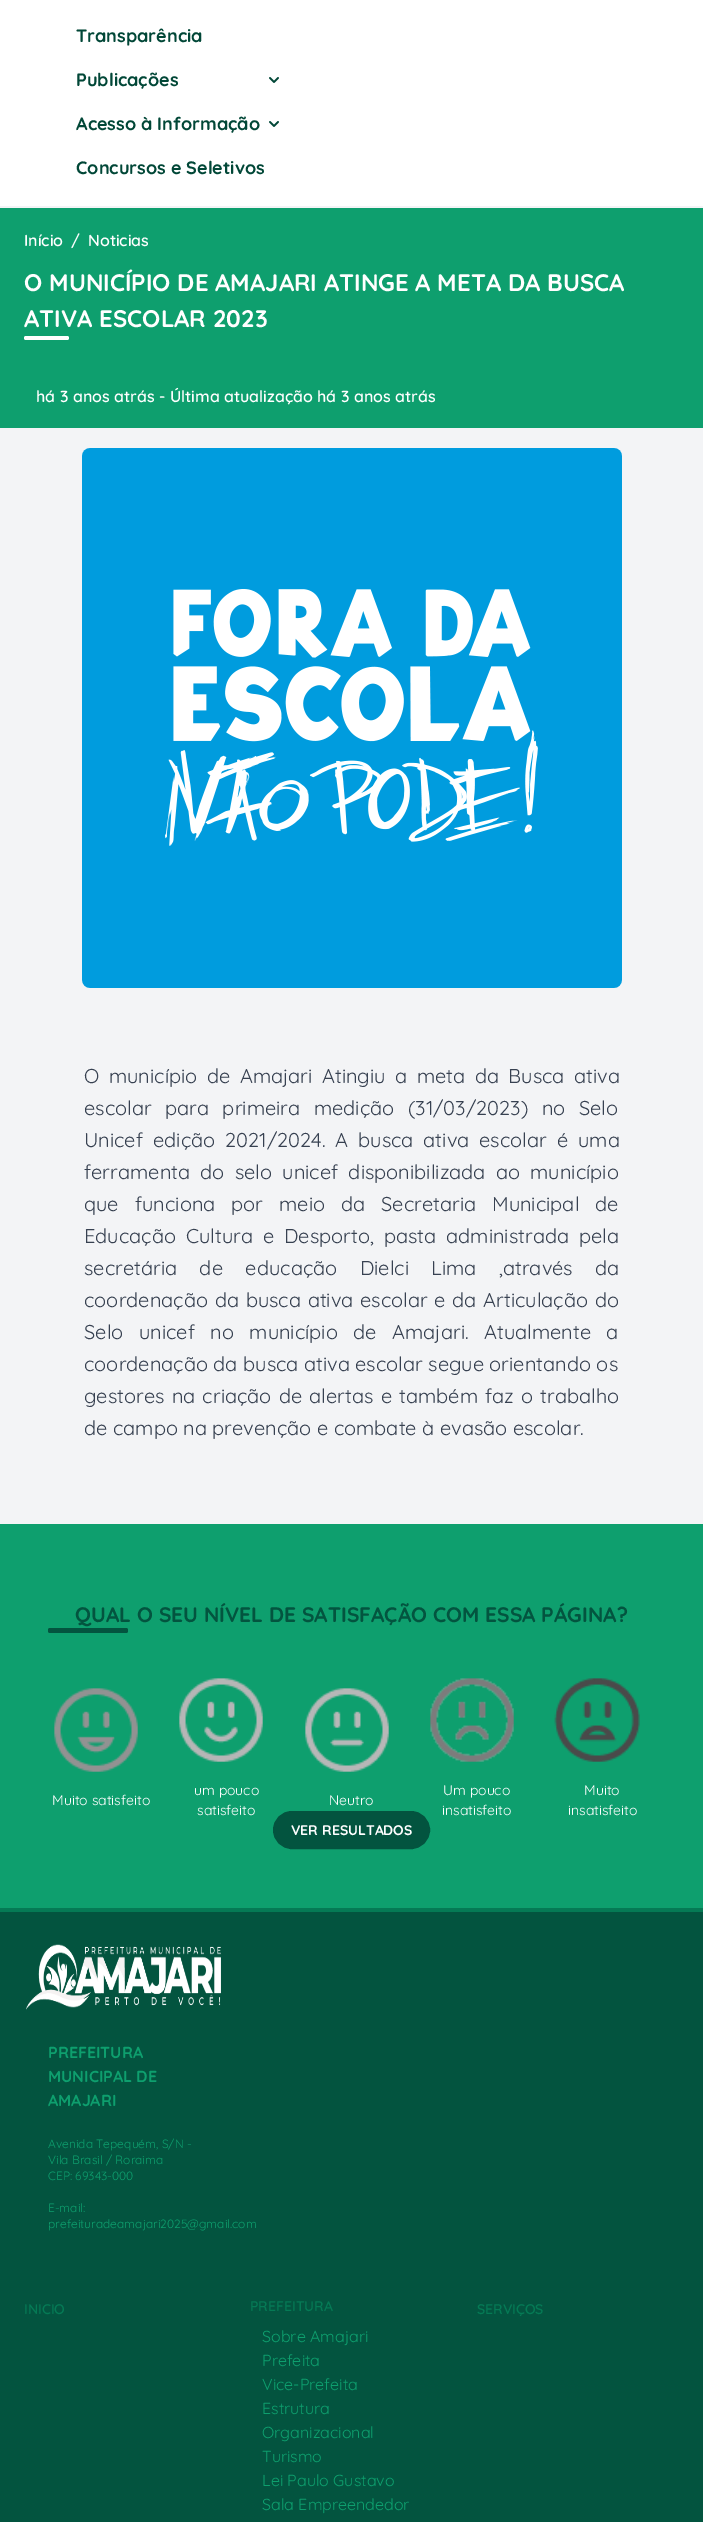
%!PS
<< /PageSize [703 2522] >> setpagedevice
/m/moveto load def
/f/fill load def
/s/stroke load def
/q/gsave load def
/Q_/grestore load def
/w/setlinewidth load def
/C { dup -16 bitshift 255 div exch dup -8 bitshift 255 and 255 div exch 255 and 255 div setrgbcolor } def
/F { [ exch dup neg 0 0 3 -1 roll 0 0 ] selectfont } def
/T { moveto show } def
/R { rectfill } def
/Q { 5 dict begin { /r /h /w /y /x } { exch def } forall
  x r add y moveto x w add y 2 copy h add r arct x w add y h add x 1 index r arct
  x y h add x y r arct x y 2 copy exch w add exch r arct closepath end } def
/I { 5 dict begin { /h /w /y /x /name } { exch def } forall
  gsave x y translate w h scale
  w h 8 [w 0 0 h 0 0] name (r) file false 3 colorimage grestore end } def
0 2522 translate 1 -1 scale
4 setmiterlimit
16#F3F4F6 C
0 0 703 2522 R
16#FFFFFF C
0 0 703 206 R
/Quicksand-Bold 18 F
16#014737 C
(Transparência) 76 42 T
(Publicações) 76 86 T
(1.rgb) 269 77 10 6 I
(Acesso à Informação) 76 130 T
(1.rgb) 269 121 10 6 I
(Concursos e Seletivos) 76 174 T
16#0E9F6E C
0 208 703 220 R
/Quicksand-SemiBold 16 F
16#FFFFFF C
(Início) 24 246 T
(/) 71 246 T
(Noticias) 88 246 T
/Quicksand-Bold 24 F
(O MUNICÍPIO DE AMAJARI ATINGE A META DA BUSCA) 24 291 T
(ATIVA ESCOLAR 2023) 24 327 T
24 336 45 4 2 Q f
/Quicksand-SemiBold 16 F
(há 3 anos atrás - Última atualização há 3 anos atrás) 36 402 T
(2.rgb) 82 448 540 540 I
/Quicksand-Regular 20 F
16#374151 C
84 1083 m 4 0 32 (O município de Amajari Atingiu a meta da Busca ativa) widthshow
84 1115 m 8 0 32 (escolar para primeira medição \(31/03/2023\) no Selo) widthshow
84 1147 m 4.5 0 32 (Unicef edição 2021/2024. A busca ativa escolar é uma) widthshow
84 1179 m 4.75 0 32 (ferramenta do selo unicef disponibilizada ao município) widthshow
84 1211 m 10.5 0 32 (que funciona por meio da Secretaria Municipal de) widthshow
84 1243 m 4.5 0 32 (Educação Cultura e Desporto, pasta administrada pela) widthshow
84 1275 m 17 0 32 (secretária de educação Dielci Lima ,através da) widthshow
84 1307 m 1.25 0 32 (coordenação da busca ativa escolar e da Articulação do) widthshow
84 1339 m 10 0 32 (Selo unicef no município de Amajari. Atualmente a) widthshow
(coordenação da busca ativa escolar segue orientando os) 84 1371 T
84 1403 m 1.75 0 32 (gestores na criação de alertas e também faz o trabalho) widthshow
(de campo na prevenção e combate à evasão escolar.) 84 1435 T
16#0E9F6E C
0 1524 703 384 R
16#057A55 C
0 1908 703 4 R
/Quicksand-Bold 21 F
16#03543F C
(QUAL O SEU NÍVEL DE SATISFAÇÃO COM ESSA PÁGINA?) 75 1622 T
48 1628 80 5 2 Q f
(3.rgb) 54 1688 84 84 I
/Quicksand-Regular 14 F
16#FFFFFF C
(Muito satisfeito) 52 1805 T
(4.rgb) 179 1678 84 84 I
(um pouco) 194 1795 T
(satisfeito) 197 1815 T
(5.rgb) 305 1688 84 84 I
(Neutro) 329 1805 T
(6.rgb) 430 1678 84 84 I
(Um pouco) 443 1795 T
(insatisfeito) 442 1815 T
(7.rgb) 554 1678 86 84 I
(Muito) 584 1795 T
(insatisfeito) 568 1815 T
16#03543F C
274 1812 155 36 18 Q q f Q_
2 w
s
/Quicksand-Bold 14 F
16#FFFFFF C
(VER RESULTADOS) 291 1835 T
16#03543F C
0 1912 703 610 R
(8.rgb) 26 1944 195 66 I
/Quicksand-Bold 16 F
16#0E9F6E C
(PREFEITURA) 48 2058 T
(MUNICIPAL DE) 48 2082 T
(AMAJARI) 48 2106 T
/Quicksand-Regular 12 F
(Avenida Tepequém, S/N -) 48 2148 T
(Vila Brasil / Roraima) 48 2164 T
(CEP: 69343-000) 48 2180 T
(E-mail:) 48 2212 T
(prefeituradeamajari2025@gmail.com) 48 2228 T
/Quicksand-SemiBold 14 F
16#057A55 C
(INICIO) 24 2314 T
(PREFEITURA) 250 2311 T
/Quicksand-Regular 16 F
16#0E9F6E C
(Sobre Amajari) 262 2342 T
(Prefeita) 262 2366 T
(Vice-Prefeita) 262 2390 T
(Estrutura) 262 2414 T
(Organizacional) 262 2438 T
(Turismo) 262 2462 T
(Lei Paulo Gustavo) 262 2486 T
(Sala Empreendedor) 262 2510 T
/Quicksand-SemiBold 14 F
16#057A55 C
(SERVIÇOS) 477 2314 T
showpage
